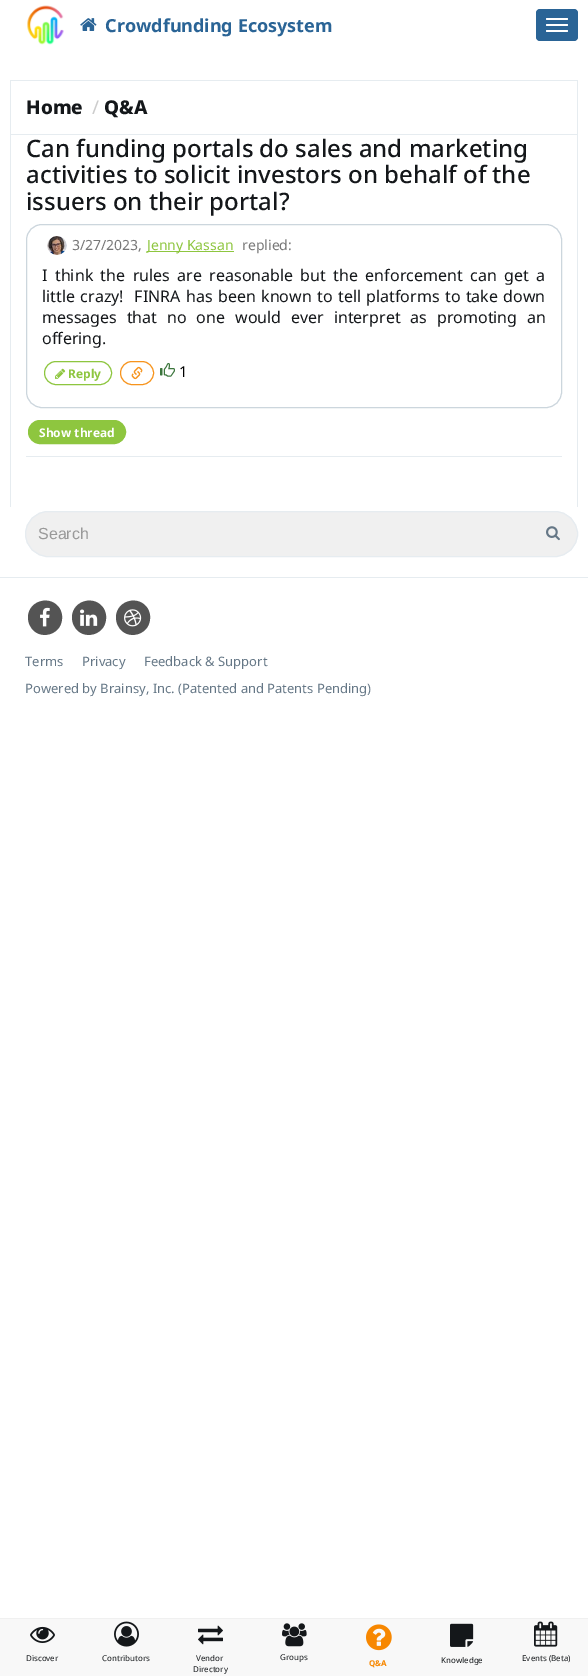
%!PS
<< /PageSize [588 1676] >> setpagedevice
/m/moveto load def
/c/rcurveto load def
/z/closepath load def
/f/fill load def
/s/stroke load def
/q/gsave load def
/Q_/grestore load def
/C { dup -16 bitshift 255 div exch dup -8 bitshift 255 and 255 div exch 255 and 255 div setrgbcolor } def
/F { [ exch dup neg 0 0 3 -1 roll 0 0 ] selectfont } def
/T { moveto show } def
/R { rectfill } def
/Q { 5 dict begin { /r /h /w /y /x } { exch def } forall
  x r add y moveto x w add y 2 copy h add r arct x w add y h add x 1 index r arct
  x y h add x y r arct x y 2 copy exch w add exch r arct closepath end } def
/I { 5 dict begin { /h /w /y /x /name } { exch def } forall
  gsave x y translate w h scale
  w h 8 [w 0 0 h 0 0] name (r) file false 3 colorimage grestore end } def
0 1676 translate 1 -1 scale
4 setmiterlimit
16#FFFFFF C
0 0 588 1676 R
(1.rgb) 27 5 37 40 I
(2.rgb) 80 18 17 13 I
/NotoSans-Bold 18 F
16#2A6496 C
(Crowdfunding Ecosystem) 105 32 T
536 9 42 32 4 Q f
16#FFFFFF C
546 18 22 2 1 Q f
546 24 22 2 1 Q f
546 30 22 2 1 Q f
16#E6ECF0 C
10 80 568 1 R
577 80 1 427 R
10 80 1 427 R
11 134 566 1 R
/NotoSans-ExtraBold 19 F
16#14171A C
(Home) 26 114 T
/NotoSans-Regular 19 F
16#CCCCCC C
(/) 92 114 T
/NotoSans-ExtraBold 19 F
16#14171A C
(Q&A) 104 114 T
16#E6ECF0 C
26 456 536 1 R
/NotoSans-Medium 24 F
16#14171A C
(Can funding portals do sales and marketing) 26 157 T
(activities to solicit investors on behalf of the) 26 183 T
(issuers on their portal?) 26 210 T
16#CCD6DD C
26.5 224.5 535 183 15.5 Q s
(3.rgb) 47 236 20 19 I
/NotoSans-Regular 14 F
16#777777 C
(3/27/2023,) 72 250 T
16#8EC63F C
147 251 87 1 R
(Jenny Kassan) 147 250 T
16#777777 C
(replied:) 242 250 T
/NotoSans-Regular 16 F
16#14171A C
42 281 m 3.25 0 32 (I think the rules are reasonable but the enforcement can get a) widthshow
42 302 m 1.25 0 32 (little crazy!  FINRA has been known to tell platforms to take down) widthshow
42 323 m 5.75 0 32 (messages that no one would ever interpret as promoting an) widthshow
(offering.) 42 344 T
16#8EC63F C
44.5 361.5 67 23 11.5 Q s
(4.rgb) 55 368 11 11 I
/NotoSans-Bold 12 F
(Reply) 68 378 T
16#F7941D C
120.5 361.5 33 23 11.5 Q s
(5.rgb) 131 366 12 14 I
(6.rgb) 160 363 15 14 I
/NotoSans-Regular 15 F
16#000000 C
(1) 179 377 T
16#8EC63F C
28.5 420.5 97 23 11.5 Q q f Q_
s
/NotoSans-Bold 12 F
16#FFFFFF C
(Show thread) 39 437 T
16#F0F0F0 C
25.5 511.5 552 45 22.5 Q q f Q_
16#E6ECF0 C
s
/LiberationSans-Regular 16 F
16#999999 C
(Search) 38 539 T
(7.rgb) 546 526 14 15 I
16#F8F8F8 C
0 1619 588 57 R
16#F0F0F0 C
0 1618 588 1 R
(8.rgb) 30 1626 25 17 I
/NotoSans-Regular 8 F
16#14171A C
(Discover) 26 1661 T
(9.rgb) 114 1621 25 26 I
(Contributors) 102 1661 T
(10.rgb) 198 1625 25 20 I
(Vendor) 196 1661 T
(Directory) 193 1672 T
(11.rgb) 282 1623 25 24 I
(Groups) 280 1660 T
(12.rgb) 366 1624 26 27 I
/NotoSans-Bold 8 F
16#F78700 C
(Q&A) 369 1666 T
(13.rgb) 450 1623 24 24 I
/NotoSans-Regular 8 F
16#14171A C
(Knowledge) 441 1663 T
(14.rgb) 534 1621 24 26 I
(Events \(Beta\)) 522 1661 T
16#E6ECF0 C
0 577 588 1 R
16#545454 C
60 609 m 1.5 3 2.5 6.5 2 10 c -1 16.5 -23.5 22 -31.5 7.5 c -2 -3 -2.5 -6.5 -2.5 -10 c 1 -16.5 23.5 -22 32 -7.5 c z f
(15.rgb) 40 607 10 20 I
104 609 m 1.5 3 2.5 6.5 2 10 c -1 16.5 -23.5 22 -31.5 7.5 c -2 -3 -2.5 -6.5 -2.5 -10 c 1 -16.5 23.5 -22 32 -7.5 c z f
(16.rgb) 80 609 18 17 I
148 609 m 1.5 3 2.5 6.5 2 10 c -1 16.5 -23.5 22 -31.5 7.5 c -2 -3 -2.5 -6.5 -2.5 -10 c 1 -16.5 23.5 -22 32 -7.5 c z f
(17.rgb) 124 609 18 18 I
/NotoSans-Regular 13 F
16#657786 C
(Terms) 25 666 T
(Privacy) 82 666 T
(Feedback & Support) 144 666 T
(Powered by Brainsy, Inc. \(Patented and Patents Pending\)) 25 693 T
showpage
